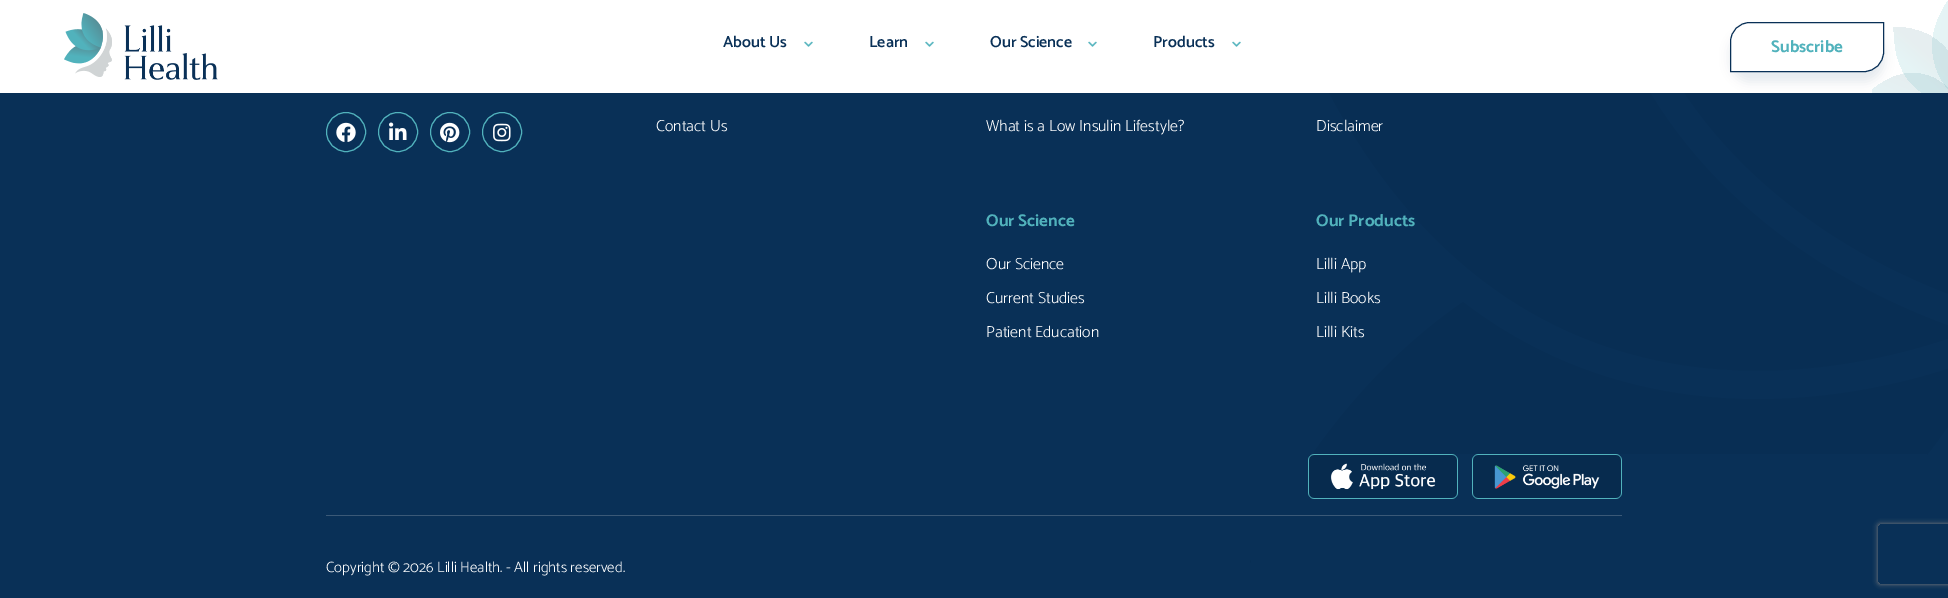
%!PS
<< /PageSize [1948 598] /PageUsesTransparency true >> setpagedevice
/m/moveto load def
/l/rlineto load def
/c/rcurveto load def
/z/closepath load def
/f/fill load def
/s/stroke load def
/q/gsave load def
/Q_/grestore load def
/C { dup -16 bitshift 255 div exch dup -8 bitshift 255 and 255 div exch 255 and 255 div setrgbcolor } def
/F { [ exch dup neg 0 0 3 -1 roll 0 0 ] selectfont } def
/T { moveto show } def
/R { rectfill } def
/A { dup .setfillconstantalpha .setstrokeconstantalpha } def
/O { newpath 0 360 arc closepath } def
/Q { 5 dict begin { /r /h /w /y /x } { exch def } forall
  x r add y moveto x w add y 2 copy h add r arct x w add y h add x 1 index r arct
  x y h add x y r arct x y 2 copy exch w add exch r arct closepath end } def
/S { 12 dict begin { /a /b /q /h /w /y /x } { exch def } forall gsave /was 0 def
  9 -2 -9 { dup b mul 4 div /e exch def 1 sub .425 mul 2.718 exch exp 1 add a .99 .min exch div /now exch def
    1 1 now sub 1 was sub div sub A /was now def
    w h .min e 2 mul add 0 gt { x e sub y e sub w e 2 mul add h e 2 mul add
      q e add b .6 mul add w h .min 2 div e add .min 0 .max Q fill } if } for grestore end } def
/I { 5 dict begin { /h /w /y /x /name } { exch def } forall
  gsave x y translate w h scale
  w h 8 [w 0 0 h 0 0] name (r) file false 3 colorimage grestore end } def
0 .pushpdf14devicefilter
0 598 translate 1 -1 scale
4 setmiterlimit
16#093057 C
0 0 1948 598 R
16#082E54 C
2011 314 m 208 -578 -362 -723 -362 -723 c -195 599 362 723 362 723 c f
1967 332 m -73 -24 -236 -93 -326 -255 c -25 -44 -43 -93 -53 -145 c -165 -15 -308 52 -308 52 c 182 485 560 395 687 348 c f
16#FFFFFF C
0 0 1948 93 R
(1.rgb) 64 13 154 67 I
/Catamaran-SemiBold 16 F
16#093057 C
(About Us) 723 47 T
(2.rgb) 804 41 9 6 I
(Learn) 869 47 T
(2.rgb) 925 41 9 6 I
(Our Science) 990 47 T
(2.rgb) 1088 41 9 6 I
(Products) 1153 47 T
(2.rgb) 1232 41 9 6 I
q
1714 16 m 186 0 l 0 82 l -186 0 l z 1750 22 m 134 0 l 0 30 l 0 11 -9 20 -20 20 c -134 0 l 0 -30 l 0 -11 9 -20 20 -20 c z eoclip newpath
1730 32 154 50 20 5 .1 S
Q_
1750 22.5 m 133.5 0 l 0 29.5 l 0 11 -8.5 19.5 -19.5 19.5 c -133.5 0 l 0 -29.5 l 0 -11 8.5 -19.5 19.5 -19.5 c z s
/Catamaran-Bold 17 F
16#51B2BC C
(Subscribe) 1771 52 T
q
1872 3 76 90 rectclip
q 1866 96 m 49 61 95 6 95 6 c -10 -13 -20 -21 -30 -25 c -35 -15 -65 19 -65 19 c clip newpath
<< /ShadingType 2 /ColorSpace /DeviceRGB /Coords [1920 113 1931 87] /Extend [true true] /Function << /FunctionType 2 /Domain [0 1] /C0 [.898 .953 .961] /C1 [.898 .933 .941] /N 1 >> >> shfill Q_
0.15 A
q 1894 27 m -1 82 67 75 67 75 c 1 -43 -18 -61 -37 -69 c -9 -4 -20 -6 -30 -6 c clip newpath
<< /ShadingType 2 /ColorSpace /DeviceRGB /Coords [1927 81 1940 66] /Extend [true true] /Function << /FunctionType 2 /Domain [0 1] /C0 [.318 .698 .737] /C1 [.333 .565 .6] /N 1 >> >> shfill Q_
Q_
0.15 A
q 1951 -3 m -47 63 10 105 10 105 c 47 -60 -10 -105 -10 -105 c z clip newpath
<< /ShadingType 2 /ColorSpace /DeviceRGB /Coords [1935 65 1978 71] /Extend [true true] /Function << /FunctionType 2 /Domain [0 1] /C0 [.318 .698 .737] /C1 [.333 .565 .6] /N 1 >> >> shfill Q_
1 A
16#082E54 C
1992 354 m -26 9 -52 18 -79 25 c -156 40 -319 24 -450 -77 c -146 100 -213 260 -213 260 c 459 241 680 -89 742 -208 c f
16#51B2BC C
346 132 19.5 O s
(3.rgb) 336 122 20 20 I
398 132 19.5 O s
(4.rgb) 389 122 18 18 I
450 132 19.5 O s
(5.rgb) 440 122 20 21 I
502 132 19.5 O s
(6.rgb) 493 123 18 19 I
/Catamaran-Light 16 F
16#FFFFFF C
(Contact Us) 656 131 T
(What is a Low Insulin Lifestyle?) 986 131 T
/Catamaran-Bold 17 F
16#51B2BC C
(Our Science) 986 226 T
/Catamaran-Light 16 F
16#FFFFFF C
(Our Science) 986 269 T
(Current Studies) 986 303 T
(Patient Education) 986 337 T
(Disclaimer) 1316 131 T
/Catamaran-Bold 17 F
16#51B2BC C
(Our Products) 1316 226 T
/Catamaran-Light 16 F
16#FFFFFF C
(Lilli App) 1316 269 T
(Lilli Books) 1316 303 T
(Lilli Kits) 1316 337 T
16#093057 C
1251 454 676 144 R
(7.rgb) 1308 454 150 45 I
(8.rgb) 1472 454 150 45 I
16#3B5977 C
326 515 1296 1 R
/Catamaran-Light 15 F
16#FFFFFF C
(Copyright © 2026 Lilli Health. - All rights reserved.) 326 572 T
q
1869 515 m 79 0 l 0 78 l -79 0 l z 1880 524 m 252 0 l 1 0 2 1 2 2 c 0 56 l 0 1 -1 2 -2 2 c -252 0 l -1 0 -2 -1 -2 -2 c 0 -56 l 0 -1 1 -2 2 -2 c z eoclip newpath
16#808080 C
1878 524 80 60 2 2.5 1 S
Q_
.poppdf14devicefilter showpage
